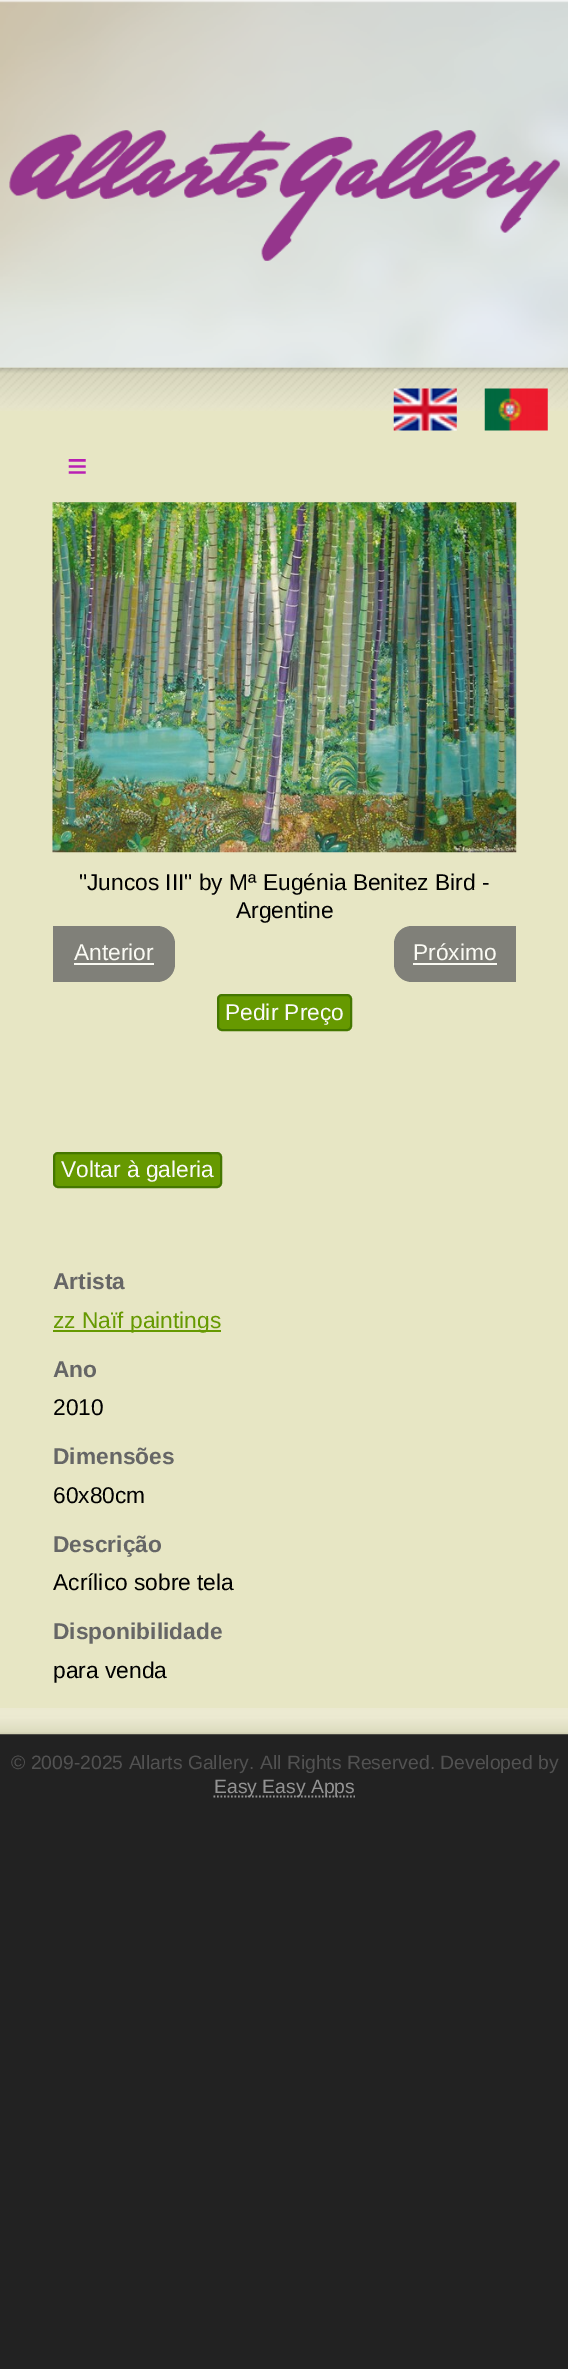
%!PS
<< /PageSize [568 2369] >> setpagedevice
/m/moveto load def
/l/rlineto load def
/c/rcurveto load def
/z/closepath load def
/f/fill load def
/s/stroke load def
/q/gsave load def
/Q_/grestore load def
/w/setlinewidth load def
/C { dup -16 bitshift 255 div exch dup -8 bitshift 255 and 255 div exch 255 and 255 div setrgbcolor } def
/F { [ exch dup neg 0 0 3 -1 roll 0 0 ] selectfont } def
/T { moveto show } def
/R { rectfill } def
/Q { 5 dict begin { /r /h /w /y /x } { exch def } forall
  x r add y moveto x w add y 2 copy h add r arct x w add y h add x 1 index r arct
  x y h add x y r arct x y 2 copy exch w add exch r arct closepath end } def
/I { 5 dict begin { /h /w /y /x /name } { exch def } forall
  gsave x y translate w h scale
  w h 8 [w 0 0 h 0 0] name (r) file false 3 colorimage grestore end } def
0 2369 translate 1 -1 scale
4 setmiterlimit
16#222222 C
0 0 568 2369 R
16#E7E6C4 C
0 367 568 1341 R
(1.rgb) 0 367 568 44 I
(2.rgb) 0 0 568 368 I
(3.rgb) 9 130 551 131 I
(4.rgb) 0 1708 568 27 I
(5.rgb) 393 388 64 43 I
(6.rgb) 484 388 64 43 I
/LiberationSans-Regular 35 F
16#B91FB4 C
(≡) 67 478 T
(7.rgb) 52 502 465 351 I
/LiberationSans-Regular 22.75 F
16#000000 C
("Juncos III" by Mª Eugénia Benitez Bird -) 79 890 T
(Argentine) 236 918 T
16#808079 C
53 926 m 104 0 l 10 0 18 8 18 18 c 0 20 l 0 10 -8 18 -18 18 c -104 0 l z f
16#FAFAF3 C
(Anterior) 74 960 T
74 963 80 2 R
16#808079 C
412 926 m 104 0 l 0 56 l -104 0 l -10 0 -18 -8 -18 -18 c 0 -20 l 0 -10 8 -18 18 -18 c z f
16#FAFAF3 C
(Próximo) 413 960 T
413 963 84 2 R
16#669900 C
218 995 133 35 4 Q q f Q_
16#447700 C
2 w
s
16#FAFAFA C
(Pedir Preço) 225 1020 T
16#669900 C
54 1153 167 34 4 Q q f Q_
16#447700 C
s
16#FAFAFA C
(Voltar à galeria) 61 1177 T
/LiberationSans-Bold 22.75 F
16#666666 C
(Artista) 53 1289 T
16#669900 C
53 1330 168 2 R
/LiberationSans-Regular 22.75 F
(zz Naïf paintings) 53 1328 T
/LiberationSans-Bold 22.75 F
16#666666 C
(Ano) 53 1377 T
/LiberationSans-Regular 22.75 F
16#000000 C
(2010) 53 1415 T
/LiberationSans-Bold 22.75 F
16#666666 C
(Dimensões) 53 1464 T
/LiberationSans-Regular 22.75 F
16#000000 C
(60x80cm) 53 1503 T
/LiberationSans-Bold 22.75 F
16#666666 C
(Descrição) 53 1552 T
/LiberationSans-Regular 22.75 F
16#000000 C
(Acrílico sobre tela) 53 1590 T
/LiberationSans-Bold 22.75 F
16#666666 C
(Disponibilidade) 53 1639 T
/LiberationSans-Regular 22.75 F
16#000000 C
(para venda) 53 1678 T
/LiberationSans-Regular 19.35 F
16#525252 C
(© 2009-2025 Allarts Gallery. All Rights Reserved. Developed by) 11 1769 T
16#939393 C
1.8 w
[1.75 1.75] 0 setdash
213.5 1796.5 m 141.5 0 l s
(Easy Easy Apps) 214 1793 T
showpage
